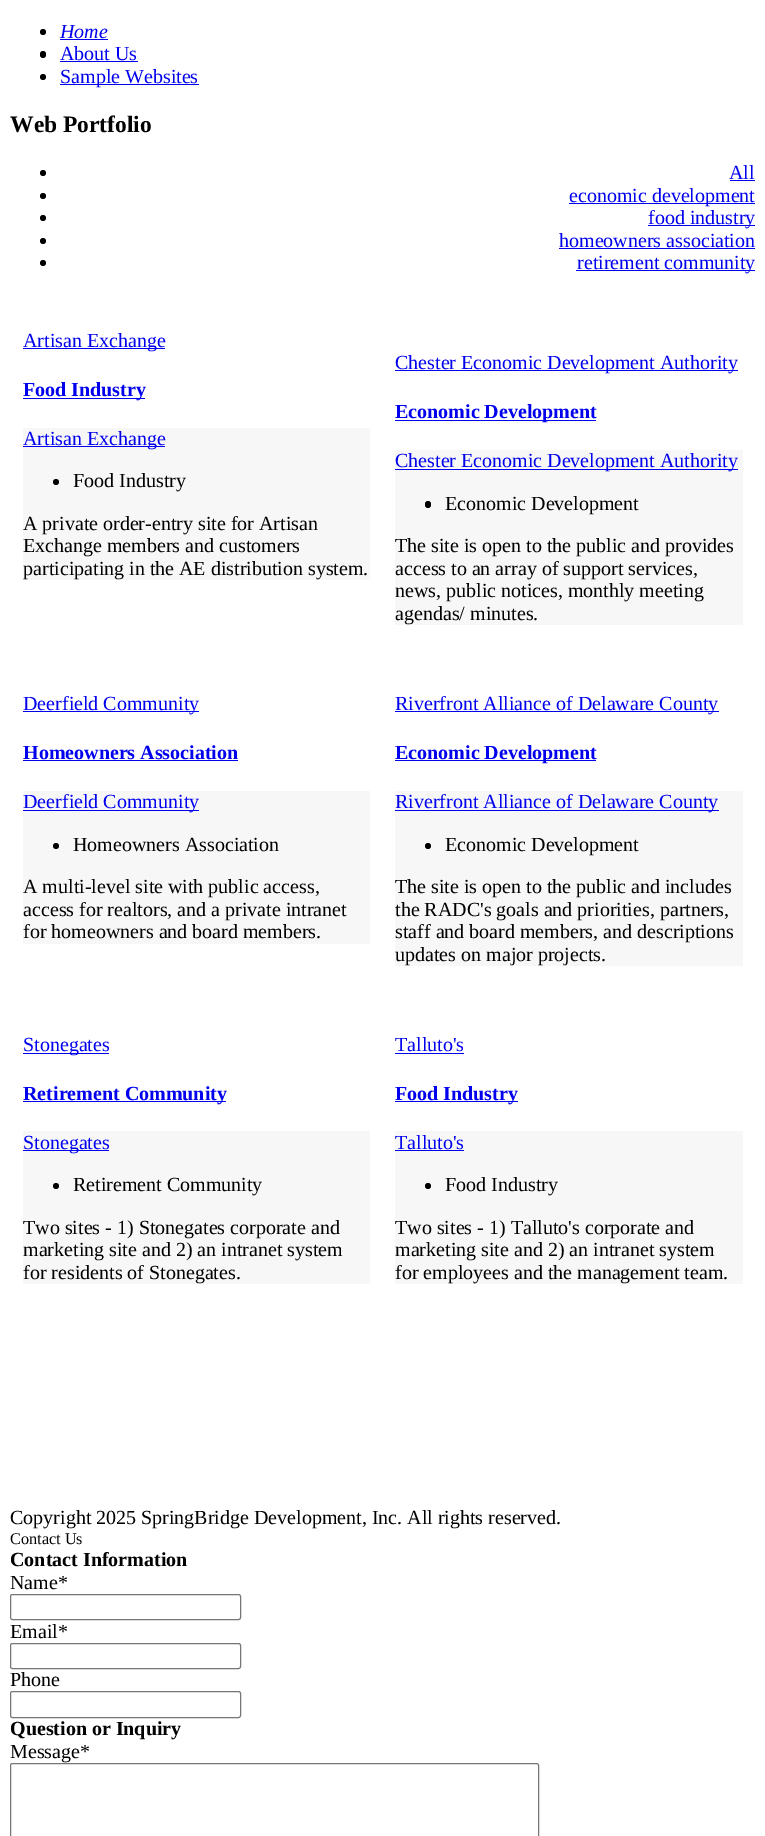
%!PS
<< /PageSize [765 1836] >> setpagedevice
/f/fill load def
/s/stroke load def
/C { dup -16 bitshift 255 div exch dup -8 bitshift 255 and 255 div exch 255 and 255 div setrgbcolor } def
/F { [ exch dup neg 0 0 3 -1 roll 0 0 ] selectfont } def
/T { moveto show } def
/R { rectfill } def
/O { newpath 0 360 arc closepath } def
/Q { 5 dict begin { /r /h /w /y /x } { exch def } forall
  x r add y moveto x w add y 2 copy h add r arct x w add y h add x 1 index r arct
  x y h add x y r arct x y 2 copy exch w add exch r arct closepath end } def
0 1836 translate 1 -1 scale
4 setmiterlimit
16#FFFFFF C
0 0 765 1836 R
16#000000 C
43 32 3 O f
/LiberationSerif-Italic 20 F
16#0000EE C
(Home) 60 38 T
60 39 48 1 R
16#000000 C
40 51 6 7 3 Q f
/LiberationSerif-Regular 20 F
16#0000EE C
(About Us) 60 60 T
60 61 78 1 R
16#000000 C
43 77 3 O f
16#0000EE C
60 84 139 1 R
(Sample Websites) 60 83 T
/LiberationSerif-Bold 23.5 F
16#000000 C
(Web Portfolio) 10 132 T
43 173 3 O f
/LiberationSerif-Regular 20 F
16#0000EE C
(All) 729 179 T
730 180 25 1 R
16#000000 C
43 196 3 O f
16#0000EE C
569 203 186 1 R
(economic development) 569 202 T
16#000000 C
43 218 3 O f
16#0000EE C
648 225 107 1 R
(food industry) 648 224 T
16#000000 C
43 241 3 O f
16#0000EE C
(homeowners association) 559 247 T
559 248 196 1 R
16#000000 C
43 263 3 O f
16#0000EE C
576 270 179 1 R
(retirement community) 577 269 T
23 348 142 1 R
(Artisan Exchange) 23 347 T
23 398 122 1 R
/LiberationSerif-Bold 20 F
(Food Industry) 23 396 T
16#F7F7F7 C
23 428 347 152 R
16#0000EE C
23 446 142 1 R
/LiberationSerif-Regular 20 F
(Artisan Exchange) 23 445 T
16#000000 C
56 482 3 O f
(Food Industry) 73 487 T
(A private order-entry site for Artisan) 23 530 T
(Exchange members and customers) 23 552 T
(participating in the AE distribution system.) 23 575 T
16#0000EE C
395 370 343 1 R
(Chester Economic Development Authority) 395 369 T
395 420 201 1 R
/LiberationSerif-Bold 20 F
(Economic Development) 395 418 T
16#F7F7F7 C
395 450 348 175 R
16#0000EE C
395 469 343 1 R
/LiberationSerif-Regular 20 F
(Chester Economic Development Authority) 395 467 T
16#000000 C
425 501 6 7 3 Q f
(Economic Development) 445 510 T
(The site is open to the public and provides) 395 552 T
(access to an array of support services,) 395 575 T
(news, public notices, monthly meeting) 395 597 T
(agendas/ minutes.) 395 620 T
16#0000EE C
23 711 176 1 R
(Deerfield Community) 23 710 T
/LiberationSerif-Bold 20 F
(Homeowners Association) 23 759 T
23 760 215 1 R
16#F7F7F7 C
23 791 347 153 R
16#0000EE C
23 810 176 1 R
/LiberationSerif-Regular 20 F
(Deerfield Community) 23 808 T
16#000000 C
56 846 3 O f
(Homeowners Association) 73 851 T
(A multi-level site with public access,) 23 893 T
(access for realtors, and a private intranet) 23 916 T
(for homeowners and board members.) 23 938 T
16#0000EE C
395 711 324 1 R
(Riverfront Alliance of Delaware County) 395 710 T
395 760 201 1 R
/LiberationSerif-Bold 20 F
(Economic Development) 395 759 T
16#F7F7F7 C
395 791 348 175 R
16#0000EE C
395 810 324 1 R
/LiberationSerif-Regular 20 F
(Riverfront Alliance of Delaware County) 395 808 T
16#000000 C
428 846 3 O f
(Economic Development) 445 851 T
(The site is open to the public and includes) 395 893 T
(the RADC's goals and priorities, partners,) 395 916 T
(staff and board members, and descriptions) 395 938 T
(updates on major projects.) 395 961 T
16#0000EE C
23 1053 86 1 R
(Stonegates) 23 1051 T
23 1101 203 1 R
/LiberationSerif-Bold 20 F
(Retirement Community) 23 1100 T
16#F7F7F7 C
23 1131 347 153 R
16#0000EE C
23 1150 86 1 R
/LiberationSerif-Regular 20 F
(Stonegates) 23 1149 T
16#000000 C
56 1186 3 O f
(Retirement Community) 73 1191 T
(Two sites - 1\) Stonegates corporate and) 23 1234 T
(marketing site and 2\) an intranet system) 23 1256 T
(for residents of Stonegates.) 23 1279 T
16#0000EE C
(Talluto's) 395 1051 T
395 1053 69 1 R
395 1101 123 1 R
/LiberationSerif-Bold 20 F
(Food Industry) 395 1100 T
16#F7F7F7 C
395 1131 348 153 R
/LiberationSerif-Regular 20 F
16#0000EE C
(Talluto's) 395 1149 T
395 1150 69 1 R
16#000000 C
428 1186 3 O f
(Food Industry) 445 1191 T
(Two sites - 1\) Talluto's corporate and) 395 1234 T
(marketing site and 2\) an intranet system) 395 1256 T
(for employees and the management team.) 395 1279 T
(Copyright 2025 SpringBridge Development, Inc. All rights reserved.) 10 1524 T
/LiberationSerif-Regular 16.25 F
(Contact Us) 10 1544 T
/LiberationSerif-Bold 20 F
(Contact Information) 10 1566 T
/LiberationSerif-Regular 20 F
(Name*) 10 1589 T
16#767676 C
10.5 1594.5 230 25 2 Q s
16#000000 C
(Email*) 10 1638 T
16#767676 C
10.5 1643.5 230 25 2 Q s
16#000000 C
(Phone) 10 1686 T
16#767676 C
10.5 1691.5 230 26 2 Q s
/LiberationSerif-Bold 20 F
16#000000 C
(Question or Inquiry) 10 1735 T
/LiberationSerif-Regular 20 F
(Message*) 10 1758 T
16#767676 C
10.5 1763.5 528 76 2 Q s
showpage
